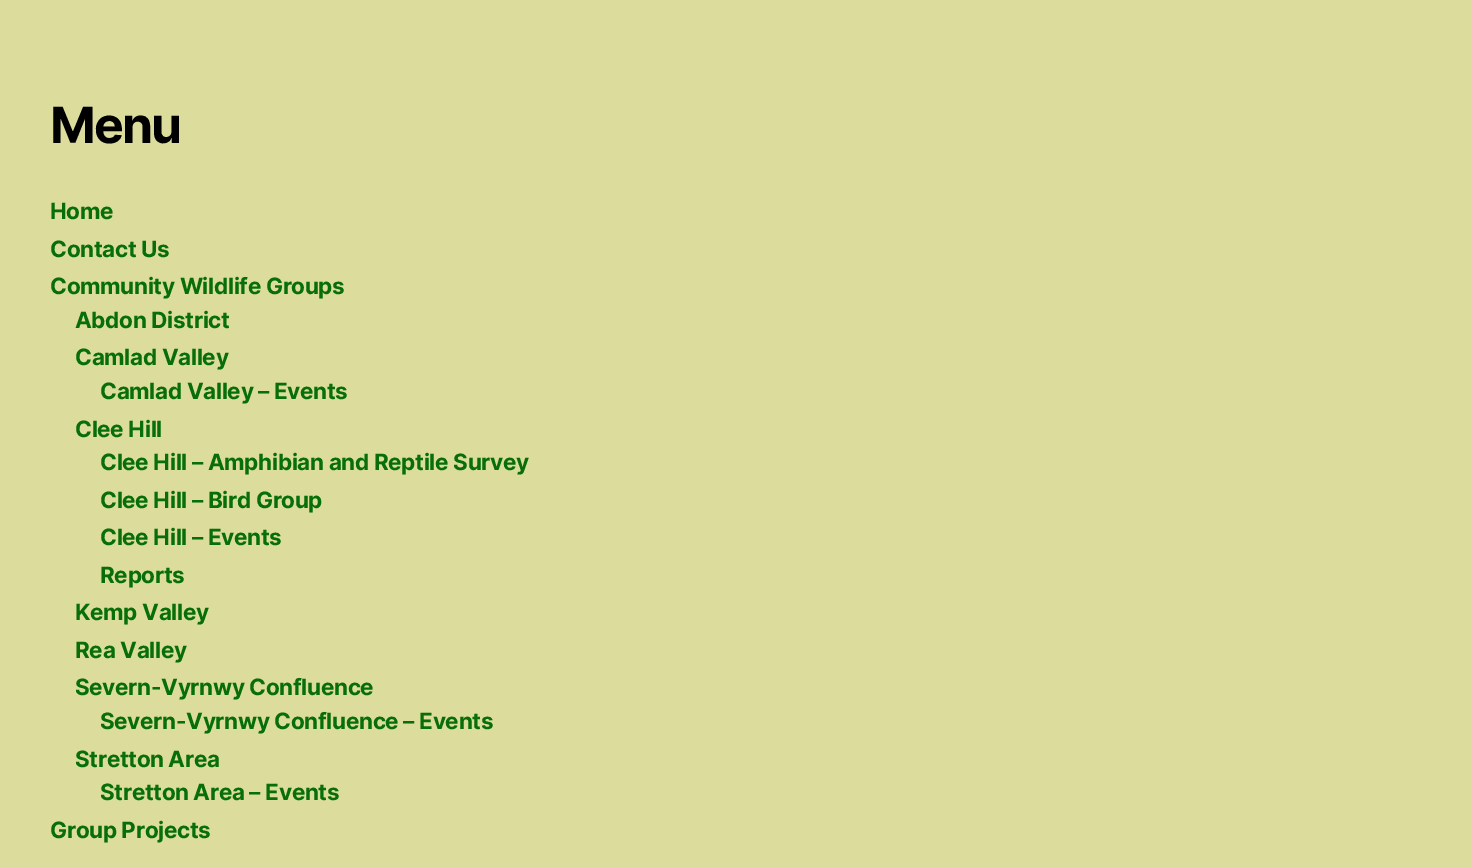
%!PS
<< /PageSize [1472 867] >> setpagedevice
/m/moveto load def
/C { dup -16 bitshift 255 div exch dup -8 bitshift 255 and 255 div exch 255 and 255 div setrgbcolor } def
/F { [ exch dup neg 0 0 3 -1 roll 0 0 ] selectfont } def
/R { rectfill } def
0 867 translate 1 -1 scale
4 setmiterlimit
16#DCDD9D C
0 0 1472 867 R
/Inter-Bold 50 F
16#000000 C
50 143 m -2 0 (Menu) ashow
/Inter-Bold 22.5 F
16#076E08 C
50 219 m -.35 0 (Home) ashow
50 257 m -.35 0 (Contact Us) ashow
50 294 m -.35 0 (Community Wildlife Groups) ashow
75 328 m -.35 0 (Abdon District) ashow
75 365 m -.35 0 (Camlad Valley) ashow
100 399 m -.35 0 (Camlad Valley – Events) ashow
75 437 m -.35 0 (Clee Hill) ashow
100 470 m -.35 0 (Clee Hill – Amphibian and Reptile Survey) ashow
100 508 m -.35 0 (Clee Hill – Bird Group) ashow
100 545 m -.35 0 (Clee Hill – Events) ashow
100 583 m -.35 0 (Reports) ashow
75 620 m -.35 0 (Kemp Valley) ashow
75 658 m -.35 0 (Rea Valley) ashow
75 695 m -.35 0 (Severn-Vyrnwy Confluence) ashow
100 729 m -.35 0 (Severn-Vyrnwy Confluence – Events) ashow
75 767 m -.35 0 (Stretton Area) ashow
100 800 m -.35 0 (Stretton Area – Events) ashow
50 838 m -.35 0 (Group Projects) ashow
showpage
